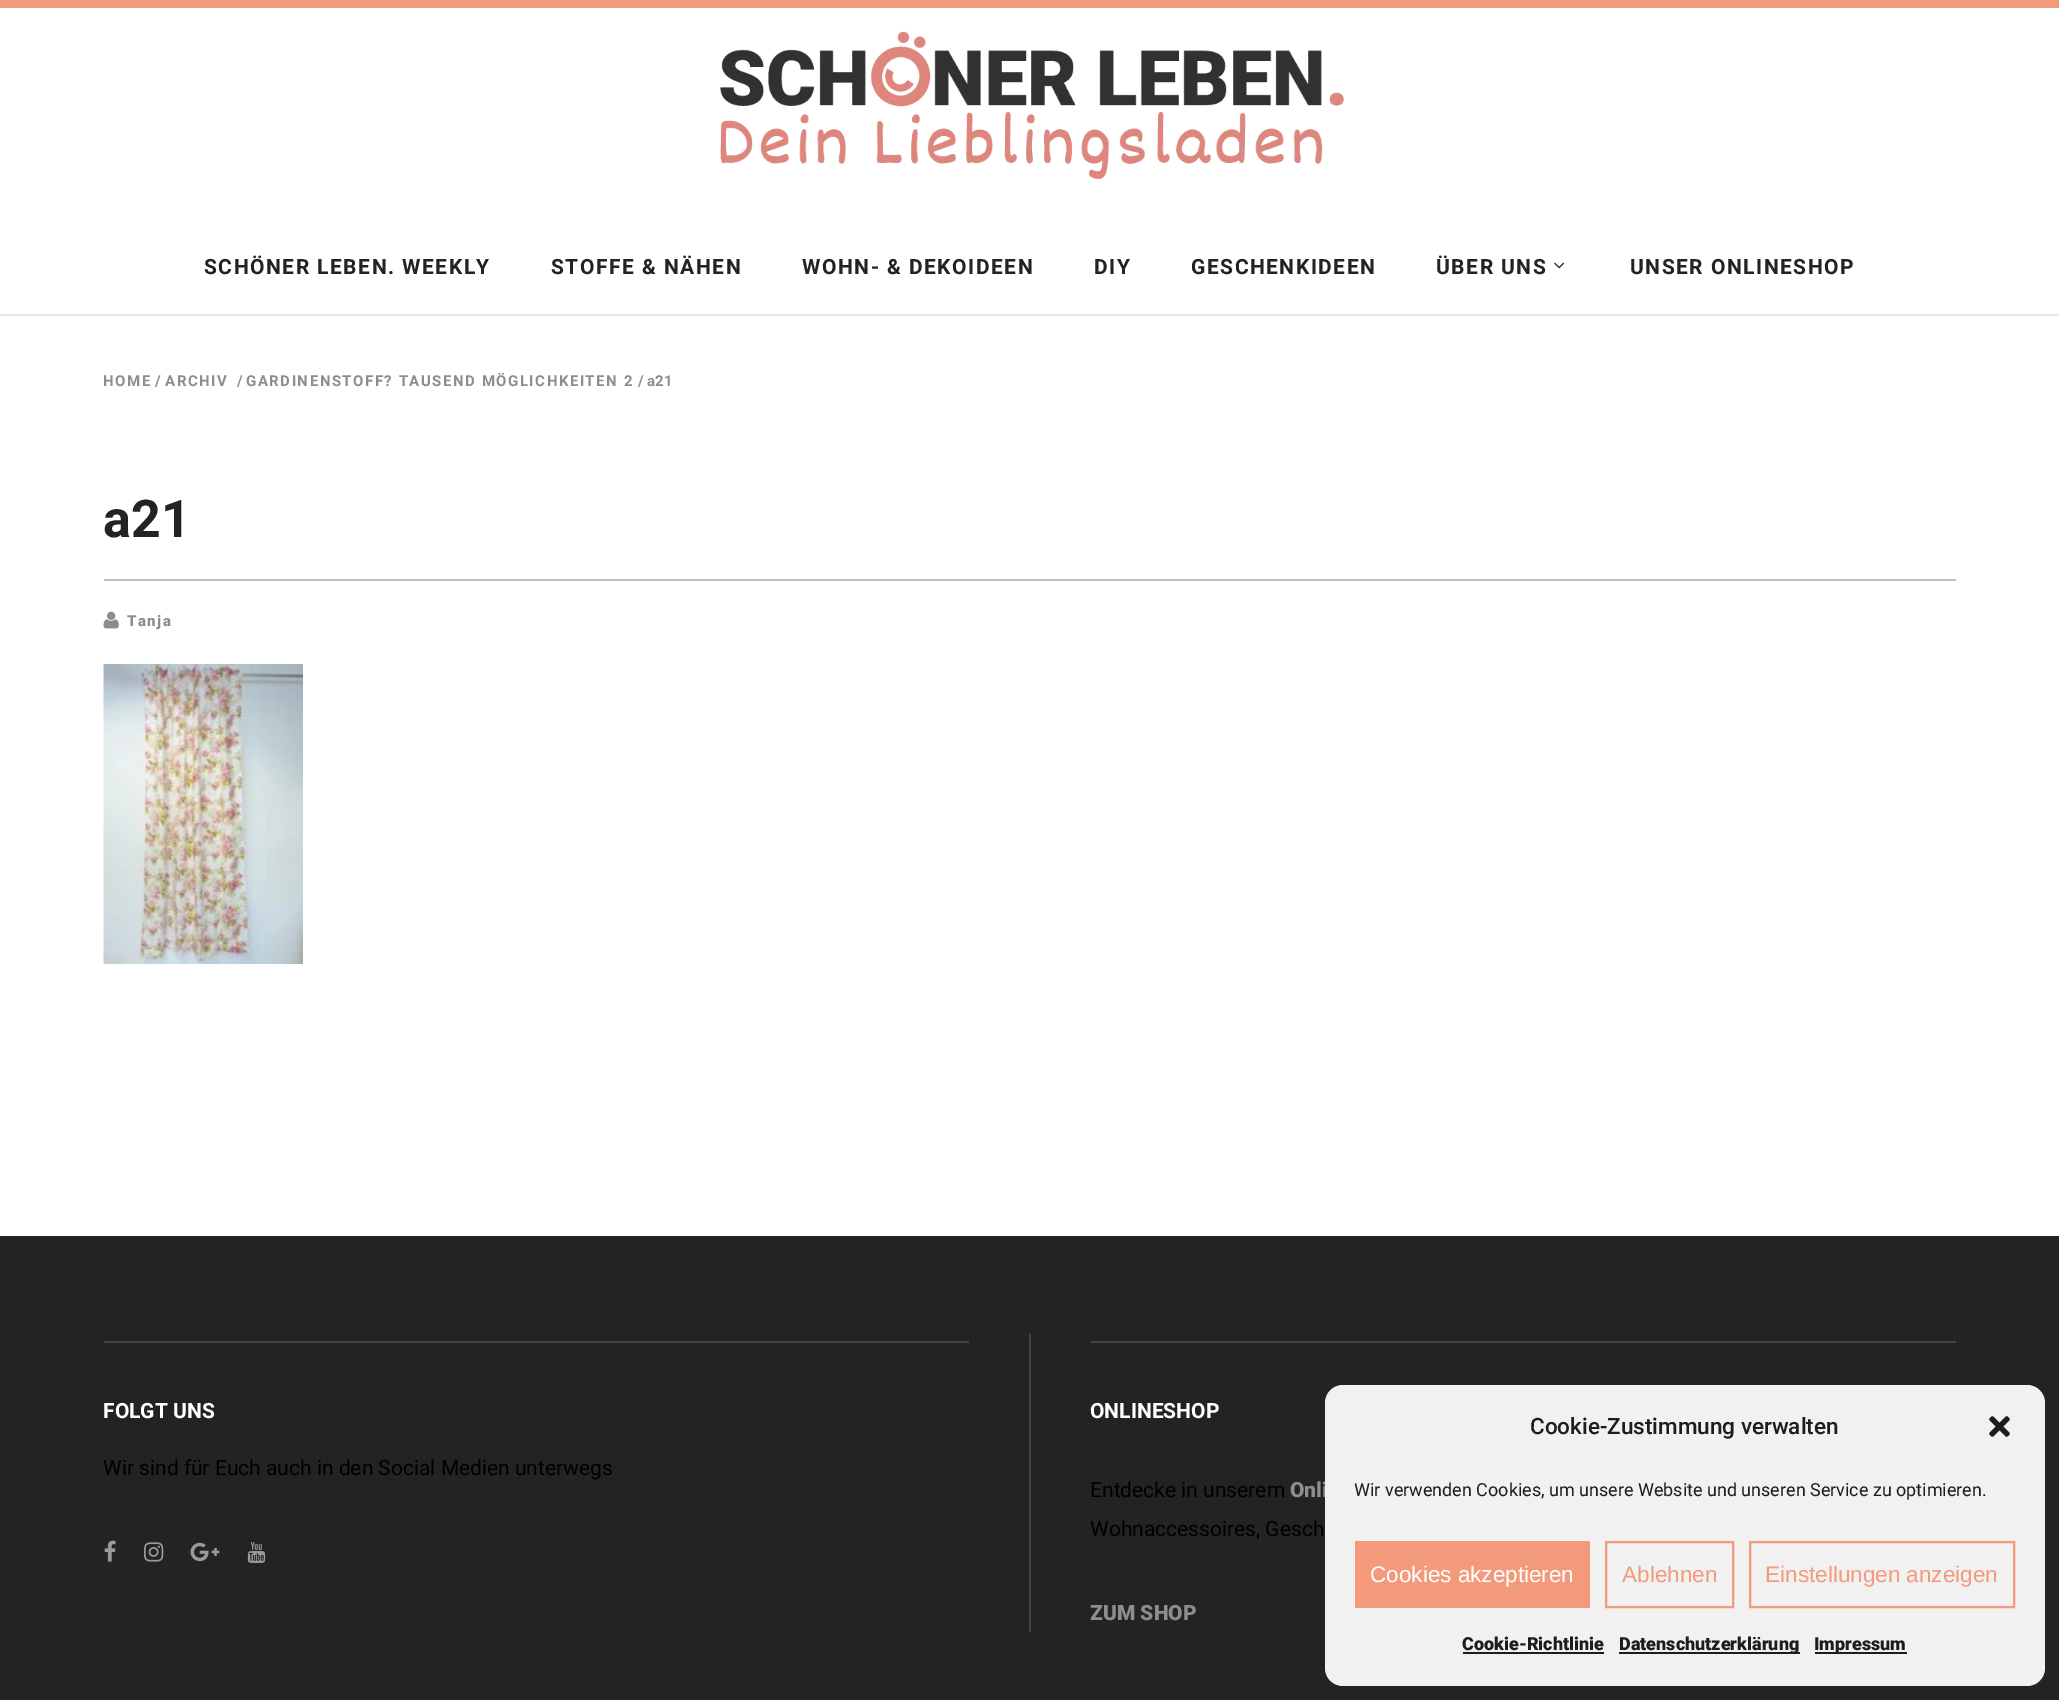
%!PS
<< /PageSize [2059 1700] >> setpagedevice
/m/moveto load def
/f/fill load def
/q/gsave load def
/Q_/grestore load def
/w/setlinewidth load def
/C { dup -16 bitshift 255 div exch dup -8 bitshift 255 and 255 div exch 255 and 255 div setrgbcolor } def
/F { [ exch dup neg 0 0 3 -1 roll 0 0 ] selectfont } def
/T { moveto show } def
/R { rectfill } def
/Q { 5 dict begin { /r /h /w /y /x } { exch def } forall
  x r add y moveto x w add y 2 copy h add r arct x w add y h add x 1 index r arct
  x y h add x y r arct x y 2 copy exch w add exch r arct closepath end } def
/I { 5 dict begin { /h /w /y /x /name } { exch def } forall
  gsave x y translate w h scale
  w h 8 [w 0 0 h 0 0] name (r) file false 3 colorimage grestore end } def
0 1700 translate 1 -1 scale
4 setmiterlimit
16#FFFFFF C
0 0 2059 1700 R
16#F39A7D C
0 0 2059 8 R
16#E5E5E5 C
0 314 2059 2 R
(1.rgb) 720 31 624 148 I
/Roboto-Bold 21 F
16#232323 C
204 274 m 1.5 0 (SCHÖNER LEBEN. WEEKLY) ashow
551 274 m 1.5 0 (STOFFE & NÄHEN) ashow
802 274 m 1.5 0 (WOHN- & DEKOIDEEN) ashow
1094 274 m 1.5 0 (DIY) ashow
1191 274 m 1.5 0 (GESCHENKIDEEN) ashow
1436 274 m 1.5 0 (ÜBER UNS) ashow
(2.rgb) 1554 262 10 7 I
1630 274 m 1.5 0 (UNSER ONLINESHOP) ashow
/Roboto-Bold 15 F
16#8D8D8D C
103 386 m 1.5 0 (HOME) ashow
(/) 155 386 T
165 386 m 1.5 0 (ARCHIV) ashow
(/) 237 386 T
246 386 m 1.5 0 (GARDINENSTOFF? TAUSEND MÖGLICHKEITEN 2) ashow
(/ a21) 638 386 T
/Roboto-Bold 52 F
16#232323 C
(a21) 103 537 T
16#BCC0C4 C
104 579 1852 2 R
(3.rgb) 103 611 16 18 I
/Roboto-Black 15 F
16#8D8D8D C
127 626 m 1.5 0 (Tanja) ashow
(4.rgb) 103 664 200 300 I
16#232323 C
0 1236 2059 464 R
16#444444 C
1029 1334 2 298 R
104 1341 865 2 R
/Roboto-Bold 21 F
16#FFFFFF C
(FOLGT UNS) 103 1418 T
/Roboto-Regular 21 F
16#000000 C
(Wir sind für Euch auch in den Social Medien unterwegs) 103 1475 T
(5.rgb) 104 1540 12 22 I
(6.rgb) 144 1542 20 20 I
(7.rgb) 190 1542 30 20 I
(8.rgb) 247 1542 19 21 I
16#444444 C
1091 1341 865 2 R
/Roboto-Bold 21 F
16#FFFFFF C
(ONLINESHOP) 1090 1418 T
/Roboto-Regular 21 F
16#000000 C
(Entdecke in unserem) 1090 1497 T
/Roboto-Black 21 F
16#8D8D8D C
(Onli) 1290 1497 T
/Roboto-Regular 21 F
16#000000 C
(Wohnaccessoires, Gesch) 1090 1536 T
/Roboto-Black 21 F
16#8D8D8D C
(ZUM SHOP) 1090 1620 T
16#F1F1F1 C
1325 1385 720 301 18 Q f
/Roboto-Medium 22.5 F
16#191E23 C
(Cookie-Zustimmung verwalten) 1530 1434 T
(9.rgb) 1989 1416 21 21 I
q
1355 1476 660 35 rectclip
/Roboto-Regular 18 F
(Wir verwenden Cookies, um unsere Website und unseren Service zu optimieren.) 1354 1496 T
Q_
16#F39A7D C
1355 1541 235 67 R
/LiberationSans-Regular 22.5 F
16#FFFFFF C
(Cookies akzeptieren) 1370 1582 T
16#F39A7D C
2 w
1606 1542 127 65 rectstroke
(Ablehnen) 1622 1582 T
1750 1542 264 65 rectstroke
(Einstellungen anzeigen) 1765 1582 T
/Roboto-Black 18 F
16#191E23 C
(Cookie-Richtlinie) 1462 1650 T
1463 1652 141 2 R
1619 1652 181 2 R
(Datenschutzerklärung) 1619 1650 T
1815 1652 92 2 R
(Impressum) 1814 1650 T
showpage
